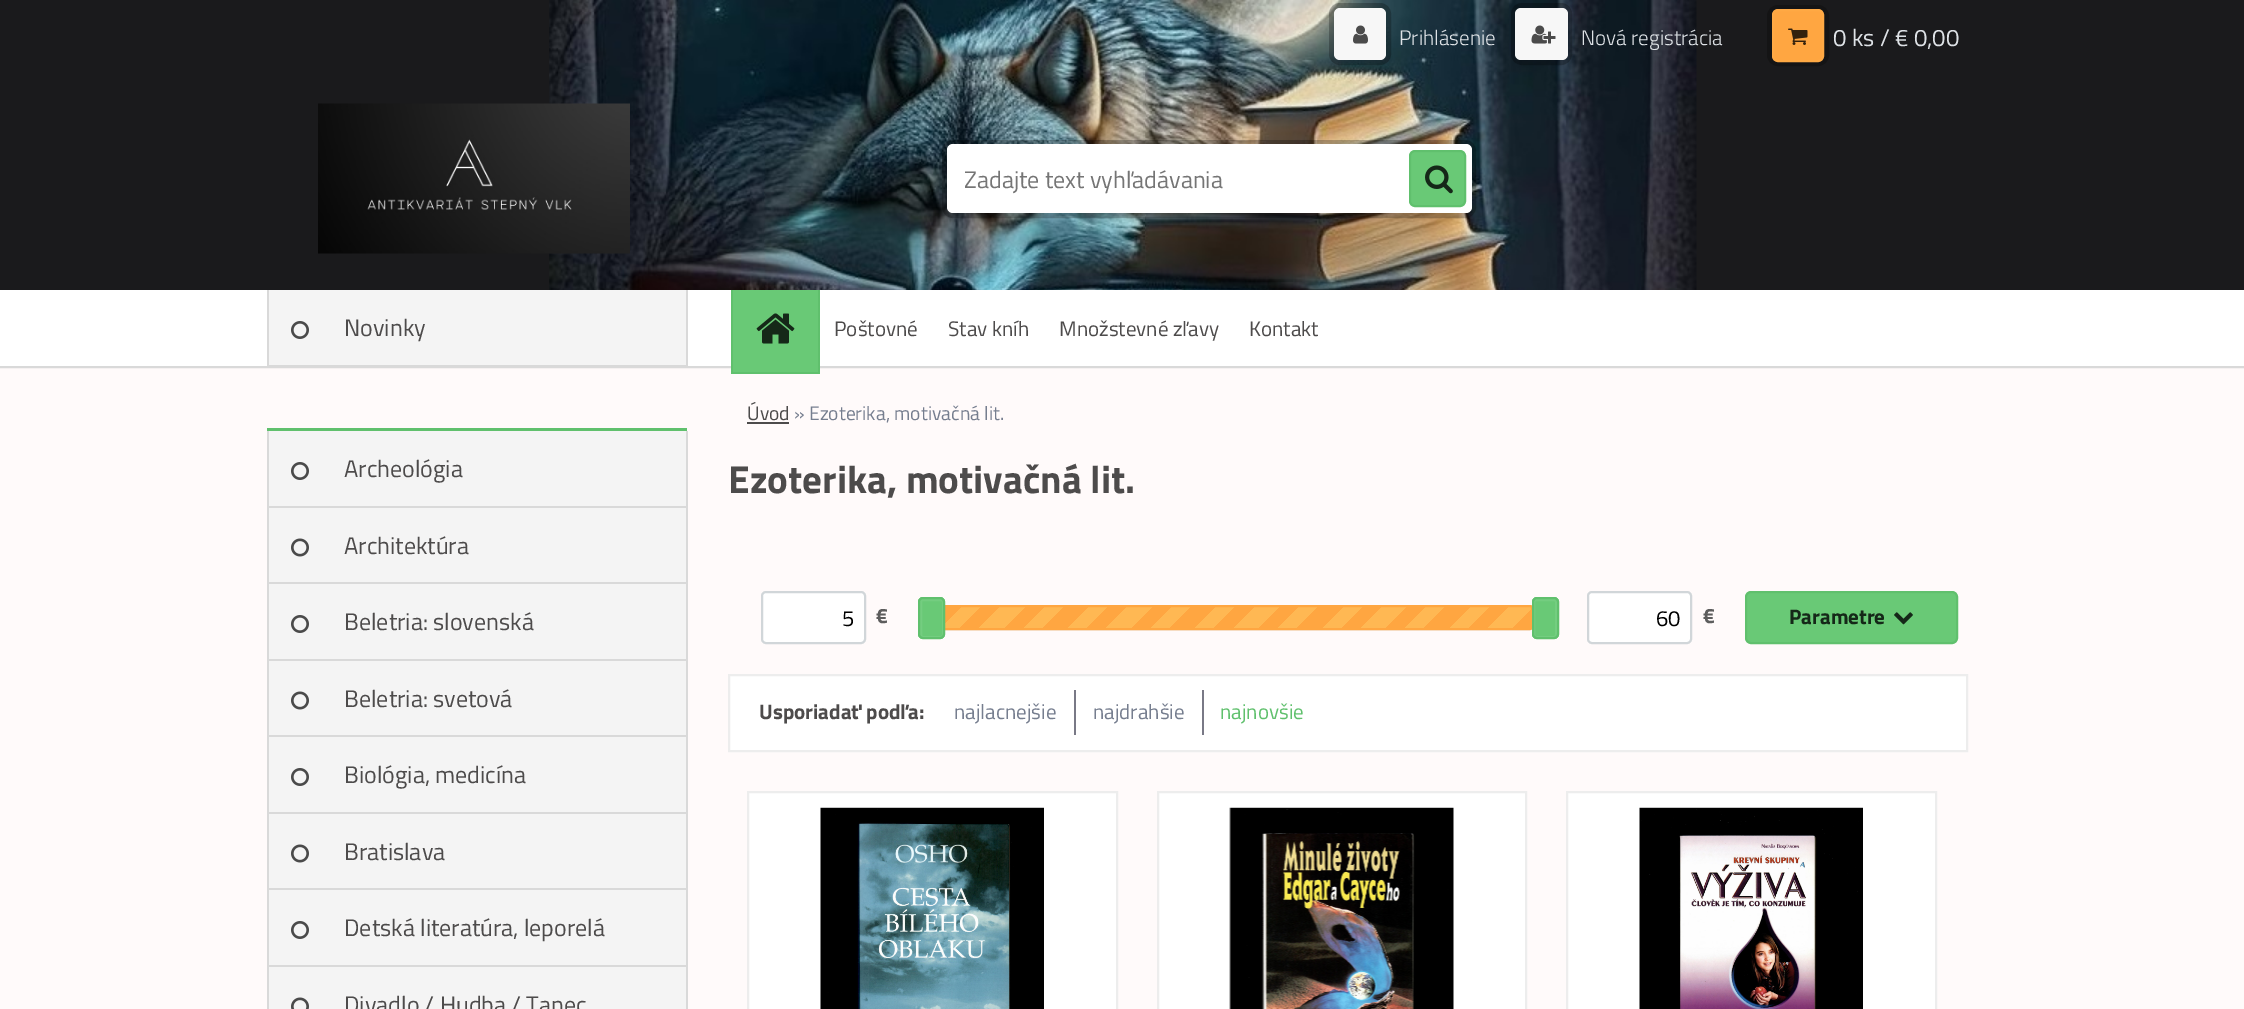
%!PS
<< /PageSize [2244 1009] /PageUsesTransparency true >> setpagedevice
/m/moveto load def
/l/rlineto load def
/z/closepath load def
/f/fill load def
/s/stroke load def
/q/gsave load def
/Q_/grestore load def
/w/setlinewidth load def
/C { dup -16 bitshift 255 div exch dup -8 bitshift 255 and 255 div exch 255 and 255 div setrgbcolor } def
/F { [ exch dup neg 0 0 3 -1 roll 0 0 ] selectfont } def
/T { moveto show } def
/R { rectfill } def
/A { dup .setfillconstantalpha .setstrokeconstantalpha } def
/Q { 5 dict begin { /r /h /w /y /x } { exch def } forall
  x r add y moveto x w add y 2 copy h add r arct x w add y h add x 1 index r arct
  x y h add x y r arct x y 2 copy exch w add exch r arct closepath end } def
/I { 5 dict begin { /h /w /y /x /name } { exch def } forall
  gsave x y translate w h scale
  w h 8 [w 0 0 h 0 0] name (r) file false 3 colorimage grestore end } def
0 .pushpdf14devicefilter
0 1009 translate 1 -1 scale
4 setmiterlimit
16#FFFAFA C
0 0 2244 1009 R
16#D9D9D9 C
2 w
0 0 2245 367 rectstroke
16#1A1A1C C
0 0 2244 290 R
(12.rgb) 549 0 1148 290 I
0.25 A
16#000000 C
5 w
1331.5 5.5 57 57 8.5 Q s
1 A
16#F7F7F7 C
1334 8 52 52 6 Q f
(1.rgb) 1353 25 15 19 I
/TitilliumWeb-Light 21 F
16#DEE2E6 C
(Prihlásenie) 1399 45 T
0.25 A
16#000000 C
1513.5 5.5 56 57 8.5 Q s
1 A
16#F7F7F7 C
1515 8 53 52 6 Q f
(2.rgb) 1531 25 25 19 I
16#DEE2E6 C
(Nová registrácia) 1581 45 T
16#141415 C
1769.5 7.5 57 56 8.5 Q s
16#FFA641 C
1773 10 50 51 5 Q q f Q_
16#FFA944 C
2 w
s
(3.rgb) 1788 28 20 17 I
/TitilliumWeb-Regular 24 F
16#DEE2E6 C
(0 ks / € 0,00) 1833 46 T
16#FFFFFF C
0 290 2244 76 R
16#F4F4F4 C
269 290 417 75 R
16#D9D9D9 C
686 290 2 76 R
267 365 420 1 R
267 290 2 76 R
(4.rgb) 291 321 18 18 I
16#4D4B4B C
(Novinky) 344 336 T
16#60C06D C
267 428 420 3 R
16#F4F4F4 C
269 431 417 75 R
16#D9D9D9 C
686 431 2 76 R
267 506 420 2 R
267 431 2 76 R
(4.rgb) 291 462 18 18 I
16#4D4B4B C
(Archeológia) 344 477 T
16#F4F4F4 C
269 508 417 74 R
16#D9D9D9 C
686 507 2 153 R
267 582 420 2 R
267 507 2 77 R
(5.rgb) 291 538 18 19 I
16#4D4B4B C
(Architektúra) 344 554 T
16#F4F4F4 C
269 584 417 75 R
16#D9D9D9 C
267 659 420 2 R
267 584 2 76 R
(4.rgb) 291 615 18 18 I
16#4D4B4B C
(Beletria: slovenská) 344 630 T
16#F4F4F4 C
269 661 417 74 R
16#D9D9D9 C
686 660 2 153 R
267 735 420 2 R
267 660 2 77 R
(5.rgb) 291 691 18 19 I
16#4D4B4B C
(Beletria: svetová) 344 707 T
16#F4F4F4 C
269 737 417 75 R
16#D9D9D9 C
267 812 420 2 R
267 737 2 76 R
(4.rgb) 291 768 18 18 I
16#4D4B4B C
(Biológia, medicína) 344 783 T
16#F4F4F4 C
269 814 417 74 R
16#D9D9D9 C
686 813 2 153 R
267 888 420 2 R
267 813 2 77 R
(5.rgb) 291 844 18 19 I
16#4D4B4B C
(Bratislava) 344 860 T
16#F4F4F4 C
269 890 417 75 R
16#D9D9D9 C
267 965 420 2 R
267 890 2 119 R
(4.rgb) 291 921 18 18 I
16#4D4B4B C
(Detská literatúra, leporelá) 344 936 T
16#F4F4F4 C
269 967 417 42 R
16#D9D9D9 C
686 966 2 43 R
(6.rgb) 291 997 18 12 I
16#4D4B4B C
(Divadlo / Hudba / Tanec) 344 1013 T
/TitilliumWeb-Regular 19.5 F
(Úvod) 747 420 T
747 422 42 2 R
16#767E8F C
(» Ezoterika, motivačná lit.) 794 420 T
/TitilliumWeb-Bold 39 F
16#4D4B4B C
(Ezoterika, motivačná lit.) 728 493 T
16#FFFFFF C
762 592 103 51 4 Q q f Q_
16#D1D6D9 C
s
/TitilliumWeb-Regular 22 F
16#000000 C
(5) 842 626 T
/TitilliumWeb-Bold 21 F
16#5D5D5D C
(€) 876 623 T
16#D1D6D9 C
942 606 590 23 2 Q s
q 945 607 m 586 0 l 0 21 l -586 0 l z clip newpath
<< /ShadingType 2 /ColorSpace /DeviceRGB /Coords [1390 770 1072 452] /Extend [true true] /Function << /FunctionType 3 /Domain [0 1] /Functions [<< /FunctionType 2 /Domain [0 1] /C0 [1 .651 .255] /C1 [1 .651 .255] /N 1 >> << /FunctionType 2 /Domain [0 1] /C0 [1 .722 .325] /C1 [1 .722 .325] /N 1 >> << /FunctionType 2 /Domain [0 1] /C0 [1 .651 .255] /C1 [1 .651 .255] /N 1 >> << /FunctionType 2 /Domain [0 1] /C0 [1 .722 .325] /C1 [1 .722 .325] /N 1 >> << /FunctionType 2 /Domain [0 1] /C0 [1 .651 .255] /C1 [1 .651 .255] /N 1 >> << /FunctionType 2 /Domain [0 1] /C0 [1 .722 .325] /C1 [1 .722 .325] /N 1 >> << /FunctionType 2 /Domain [0 1] /C0 [1 .651 .255] /C1 [1 .651 .255] /N 1 >> << /FunctionType 2 /Domain [0 1] /C0 [1 .722 .325] /C1 [1 .722 .325] /N 1 >> << /FunctionType 2 /Domain [0 1] /C0 [1 .651 .255] /C1 [1 .651 .255] /N 1 >> << /FunctionType 2 /Domain [0 1] /C0 [1 .722 .325] /C1 [1 .722 .325] /N 1 >> << /FunctionType 2 /Domain [0 1] /C0 [1 .651 .255] /C1 [1 .651 .255] /N 1 >> << /FunctionType 2 /Domain [0 1] /C0 [1 .722 .325] /C1 [1 .722 .325] /N 1 >> << /FunctionType 2 /Domain [0 1] /C0 [1 .651 .255] /C1 [1 .651 .255] /N 1 >> << /FunctionType 2 /Domain [0 1] /C0 [1 .722 .325] /C1 [1 .722 .325] /N 1 >> << /FunctionType 2 /Domain [0 1] /C0 [1 .651 .255] /C1 [1 .651 .255] /N 1 >> << /FunctionType 2 /Domain [0 1] /C0 [1 .722 .325] /C1 [1 .722 .325] /N 1 >> << /FunctionType 2 /Domain [0 1] /C0 [1 .651 .255] /C1 [1 .651 .255] /N 1 >> << /FunctionType 2 /Domain [0 1] /C0 [1 .722 .325] /C1 [1 .722 .325] /N 1 >> << /FunctionType 2 /Domain [0 1] /C0 [1 .651 .255] /C1 [1 .651 .255] /N 1 >> << /FunctionType 2 /Domain [0 1] /C0 [1 .722 .325] /C1 [1 .722 .325] /N 1 >> << /FunctionType 2 /Domain [0 1] /C0 [1 .651 .255] /C1 [1 .651 .255] /N 1 >> << /FunctionType 2 /Domain [0 1] /C0 [1 .722 .325] /C1 [1 .722 .325] /N 1 >> << /FunctionType 2 /Domain [0 1] /C0 [1 .651 .255] /C1 [1 .651 .255] /N 1 >> << /FunctionType 2 /Domain [0 1] /C0 [1 .722 .325] /C1 [1 .722 .325] /N 1 >> << /FunctionType 2 /Domain [0 1] /C0 [1 .651 .255] /C1 [1 .651 .255] /N 1 >> << /FunctionType 2 /Domain [0 1] /C0 [1 .722 .325] /C1 [1 .722 .325] /N 1 >> << /FunctionType 2 /Domain [0 1] /C0 [1 .651 .255] /C1 [1 .651 .255] /N 1 >> << /FunctionType 2 /Domain [0 1] /C0 [1 .722 .325] /C1 [1 .722 .325] /N 1 >> << /FunctionType 2 /Domain [0 1] /C0 [1 .651 .255] /C1 [1 .651 .255] /N 1 >> << /FunctionType 2 /Domain [0 1] /C0 [1 .722 .325] /C1 [1 .722 .325] /N 1 >>] /Bounds [.03 .07 .1 .13 .17 .2 .23 .27 .3 .33 .37 .4 .43 .47 .5 .53 .57 .6 .63 .67 .7 .73 .77 .8 .83 .87 .9 .93 .97] /Encode [0 1 0 1 0 1 0 1 0 1 0 1 0 1 0 1 0 1 0 1 0 1 0 1 0 1 0 1 0 1 0 1 0 1 0 1 0 1 0 1 0 1 0 1 0 1 0 1 0 1 0 1 0 1 0 1 0 1 0 1] >> >> shfill Q_
16#FFA641 C
942 606 590 23 2 Q s
16#69C976 C
918 597 27 42 5 Q f
16#74CD80 C
921 600 22 37 2 Q s
16#60C06D C
919 598 25 40 4 Q s
16#69C976 C
1532 597 27 42 5 Q f
16#74CD80 C
1534 600 22 37 2 Q s
16#60C06D C
1533 598 25 40 4 Q s
16#FFFFFF C
1588 592 103 51 4 Q q f Q_
16#D1D6D9 C
s
/TitilliumWeb-Regular 22 F
16#000000 C
(60) 1656 626 T
/TitilliumWeb-Bold 21 F
16#5D5D5D C
(€) 1703 623 T
16#69C976 C
1746 592 211 51 5 Q q f Q_
16#60C06D C
s
16#152818 C
(Parametre) 1789 624 T
(7.rgb) 1894 612 19 13 I
16#FFFFFF C
729 675 m 1238 0 l 0 76 l -1238 0 l z q f Q_
16#EDEDED C
s
16#4D4B4B C
(Usporiadať podľa:) 759 719 T
16#797986 C
1074 690 2 45 R
/TitilliumWeb-Regular 21 F
16#767E8F C
(najlacnejšie) 954 719 T
16#797986 C
1202 690 2 45 R
16#767E8F C
(najdrahšie) 1093 719 T
16#60C06D C
(najnovšie) 1220 719 T
16#FFFFFF C
748 792 m 369 0 l 0 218 l -369 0 l z q f Q_
16#EDEDED C
s
(8.rgb) 820 807 224 202 I
16#FFFFFF C
1158 792 m 368 0 l 0 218 l -368 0 l z q f Q_
16#EDEDED C
s
(9.rgb) 1229 807 225 202 I
16#FFFFFF C
1567 792 m 369 0 l 0 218 l -369 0 l z q f Q_
16#EDEDED C
s
(10.rgb) 1639 807 224 202 I
16#69C976 C
733 290 85 82 R
16#60C06D C
818 290 2 84 R
731 372 88 2 R
731 290 2 84 R
(11.rgb) 756 313 39 31 I
16#4D4B4B C
(Poštovné) 834 336 T
(Stav kníh) 948 336 T
(Množstevné zľavy) 1059 336 T
(Kontakt) 1249 336 T
(13.rgb) 318 103 312 151 I
0.25 A
16#000000 C
5 w
944.5 142.5 529 73 8.5 Q s
1 A
16#FFFFFF C
947 144 525 69 6 Q f
/TitilliumWeb-Regular 24 F
16#757575 C
(Zadajte text vyhľadávania) 964 188 T
16#69C976 C
1410 151 55 55 5 Q q f Q_
16#60C06D C
2 w
s
(14.rgb) 1425 165 28 29 I
.poppdf14devicefilter showpage
